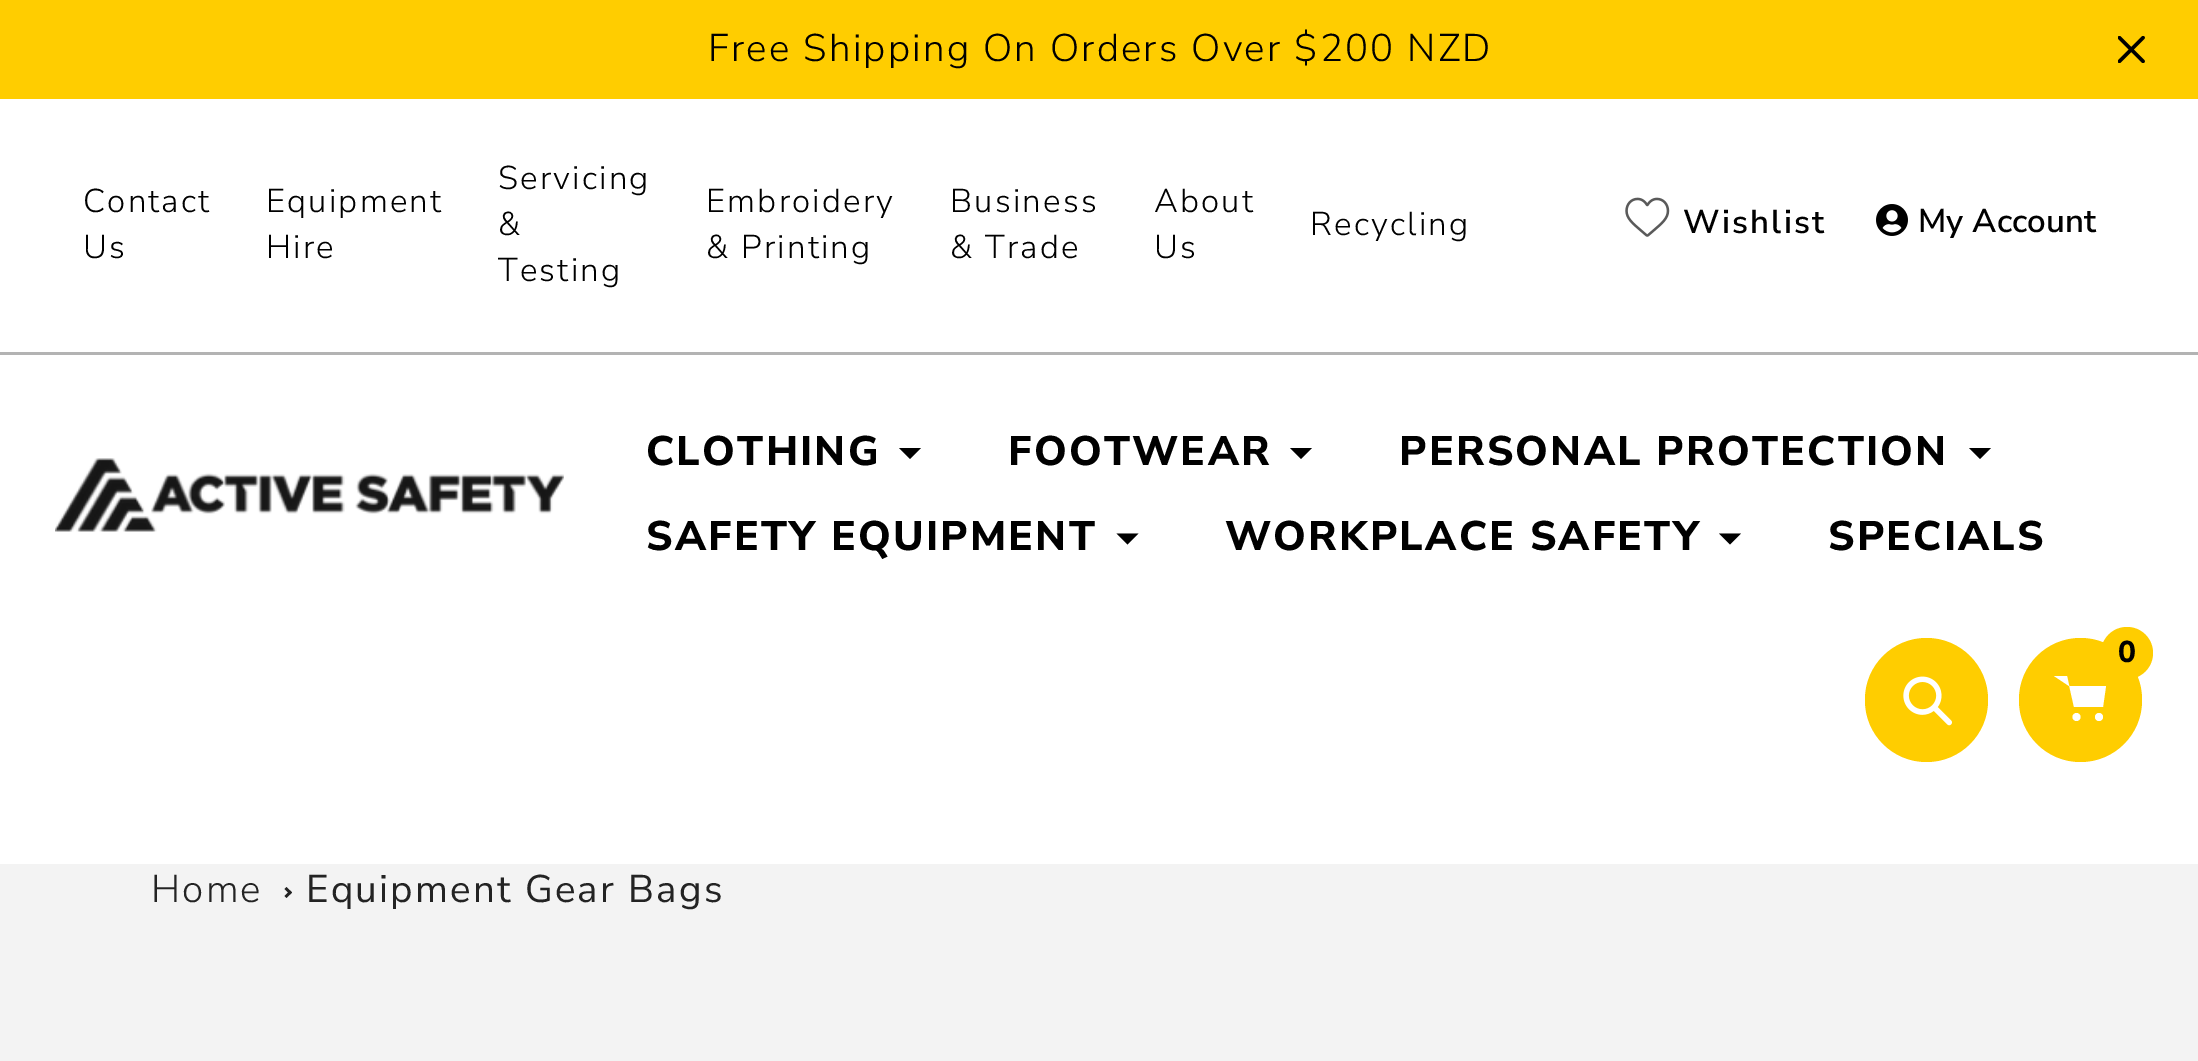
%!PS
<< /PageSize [2198 1061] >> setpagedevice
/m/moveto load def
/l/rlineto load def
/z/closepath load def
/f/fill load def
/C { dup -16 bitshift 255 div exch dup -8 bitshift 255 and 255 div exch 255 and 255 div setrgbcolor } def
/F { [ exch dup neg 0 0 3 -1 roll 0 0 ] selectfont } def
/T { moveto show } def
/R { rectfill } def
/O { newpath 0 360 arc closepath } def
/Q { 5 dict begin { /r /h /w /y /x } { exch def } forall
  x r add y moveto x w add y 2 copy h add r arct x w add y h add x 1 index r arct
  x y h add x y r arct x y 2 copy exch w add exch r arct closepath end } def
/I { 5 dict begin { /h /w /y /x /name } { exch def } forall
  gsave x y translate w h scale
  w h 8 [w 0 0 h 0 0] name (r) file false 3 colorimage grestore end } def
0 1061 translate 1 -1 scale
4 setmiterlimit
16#FFFFFF C
0 0 2198 1061 R
16#FFCD00 C
0 0 2198 99 R
/NunitoSans-Light 38.5 F
16#000000 C
708 61 m 2.2 0 (Free Shipping On Orders Over $200 NZD) ashow
(1.rgb) 2118 36 27 27 I
16#B3B3B3 C
0 352 2198 3 R
/NunitoSans-Light 33 F
16#000000 C
83 212 m 2.2 0 (Contact) ashow
83 258 m 2.2 0 (Us) ashow
266 212 m 2.2 0 (Equipment) ashow
266 258 m 2.2 0 (Hire) ashow
498 189 m 2.2 0 (Servicing) ashow
498 235 m 2.2 0 (&) ashow
498 281 m 2.2 0 (Testing) ashow
706 212 m 2.2 0 (Embroidery) ashow
706 258 m 2.2 0 (& Printing) ashow
950 212 m 2.2 0 (Business) ashow
950 258 m 2.2 0 (& Trade) ashow
1154 212 m 2.2 0 (About) ashow
1154 258 m 2.2 0 (Us) ashow
1310 235 m 2.2 0 (Recycling) ashow
(2.rgb) 1625 197 45 40 I
/NunitoSans-SemiBold 33 F
1683 233 m 2.2 0 (Wishlist) ashow
(3.rgb) 1876 204 32 32 I
(My Account) 1918 232 T
(4.rgb) 55 458 509 74 I
/NunitoSans-ExtraBold 41.25 F
646 465 m 2.2 0 (CLOTHING) ashow
921 448 m -11 11 l -11 -11 l f
1008 465 m 2.2 0 (FOOTWEAR) ashow
1312 448 m -11 11 l -11 -11 l f
1399 465 m 2.2 0 (PERSONAL PROTECTION) ashow
1991 448 m -11 11 l -11 -11 l f
646 550 m 2.2 0 (SAFETY EQUIPMENT) ashow
1138.5 533.5 m -11 11 l -11 -11 l f
1225 550 m 2.2 0 (WORKPLACE SAFETY) ashow
1741 533.5 m -11 11 l -11 -11 l f
1828 550 m 2.2 0 (SPECIALS) ashow
16#FFCD00 C
1865 638 123 124 61.5 Q f
(5.rgb) 1903 676 49 50 I
2019 638 123 124 61.5 Q f
16#FFFFFF C
2069 686 m 37 0 l -3 21 l -29 0 l -7 -31 l -13 0 l eofill
16#FFCD00 C
2127 653 26 O f
/NunitoSans-ExtraBold 30 F
16#000000 C
(0) 2118 662 T
16#FFFFFF C
2076.5 717 4 O f
2099 717 4 O f
16#F3F3F3 C
0 864 2198 197 R
/NunitoSans-Light 38.5 F
16#232323 C
151 902 m 2.2 0 (Home) ashow
286.5 887 m 5.5 5.5 l -2 2 l -5.5 -5.5 l z f
290 890.5 m 2 2 l -5.5 5.5 l -2 -2 l z f
/NunitoSans-Regular 38.5 F
306 902 m 2.2 0 (Equipment Gear Bags) ashow
showpage
